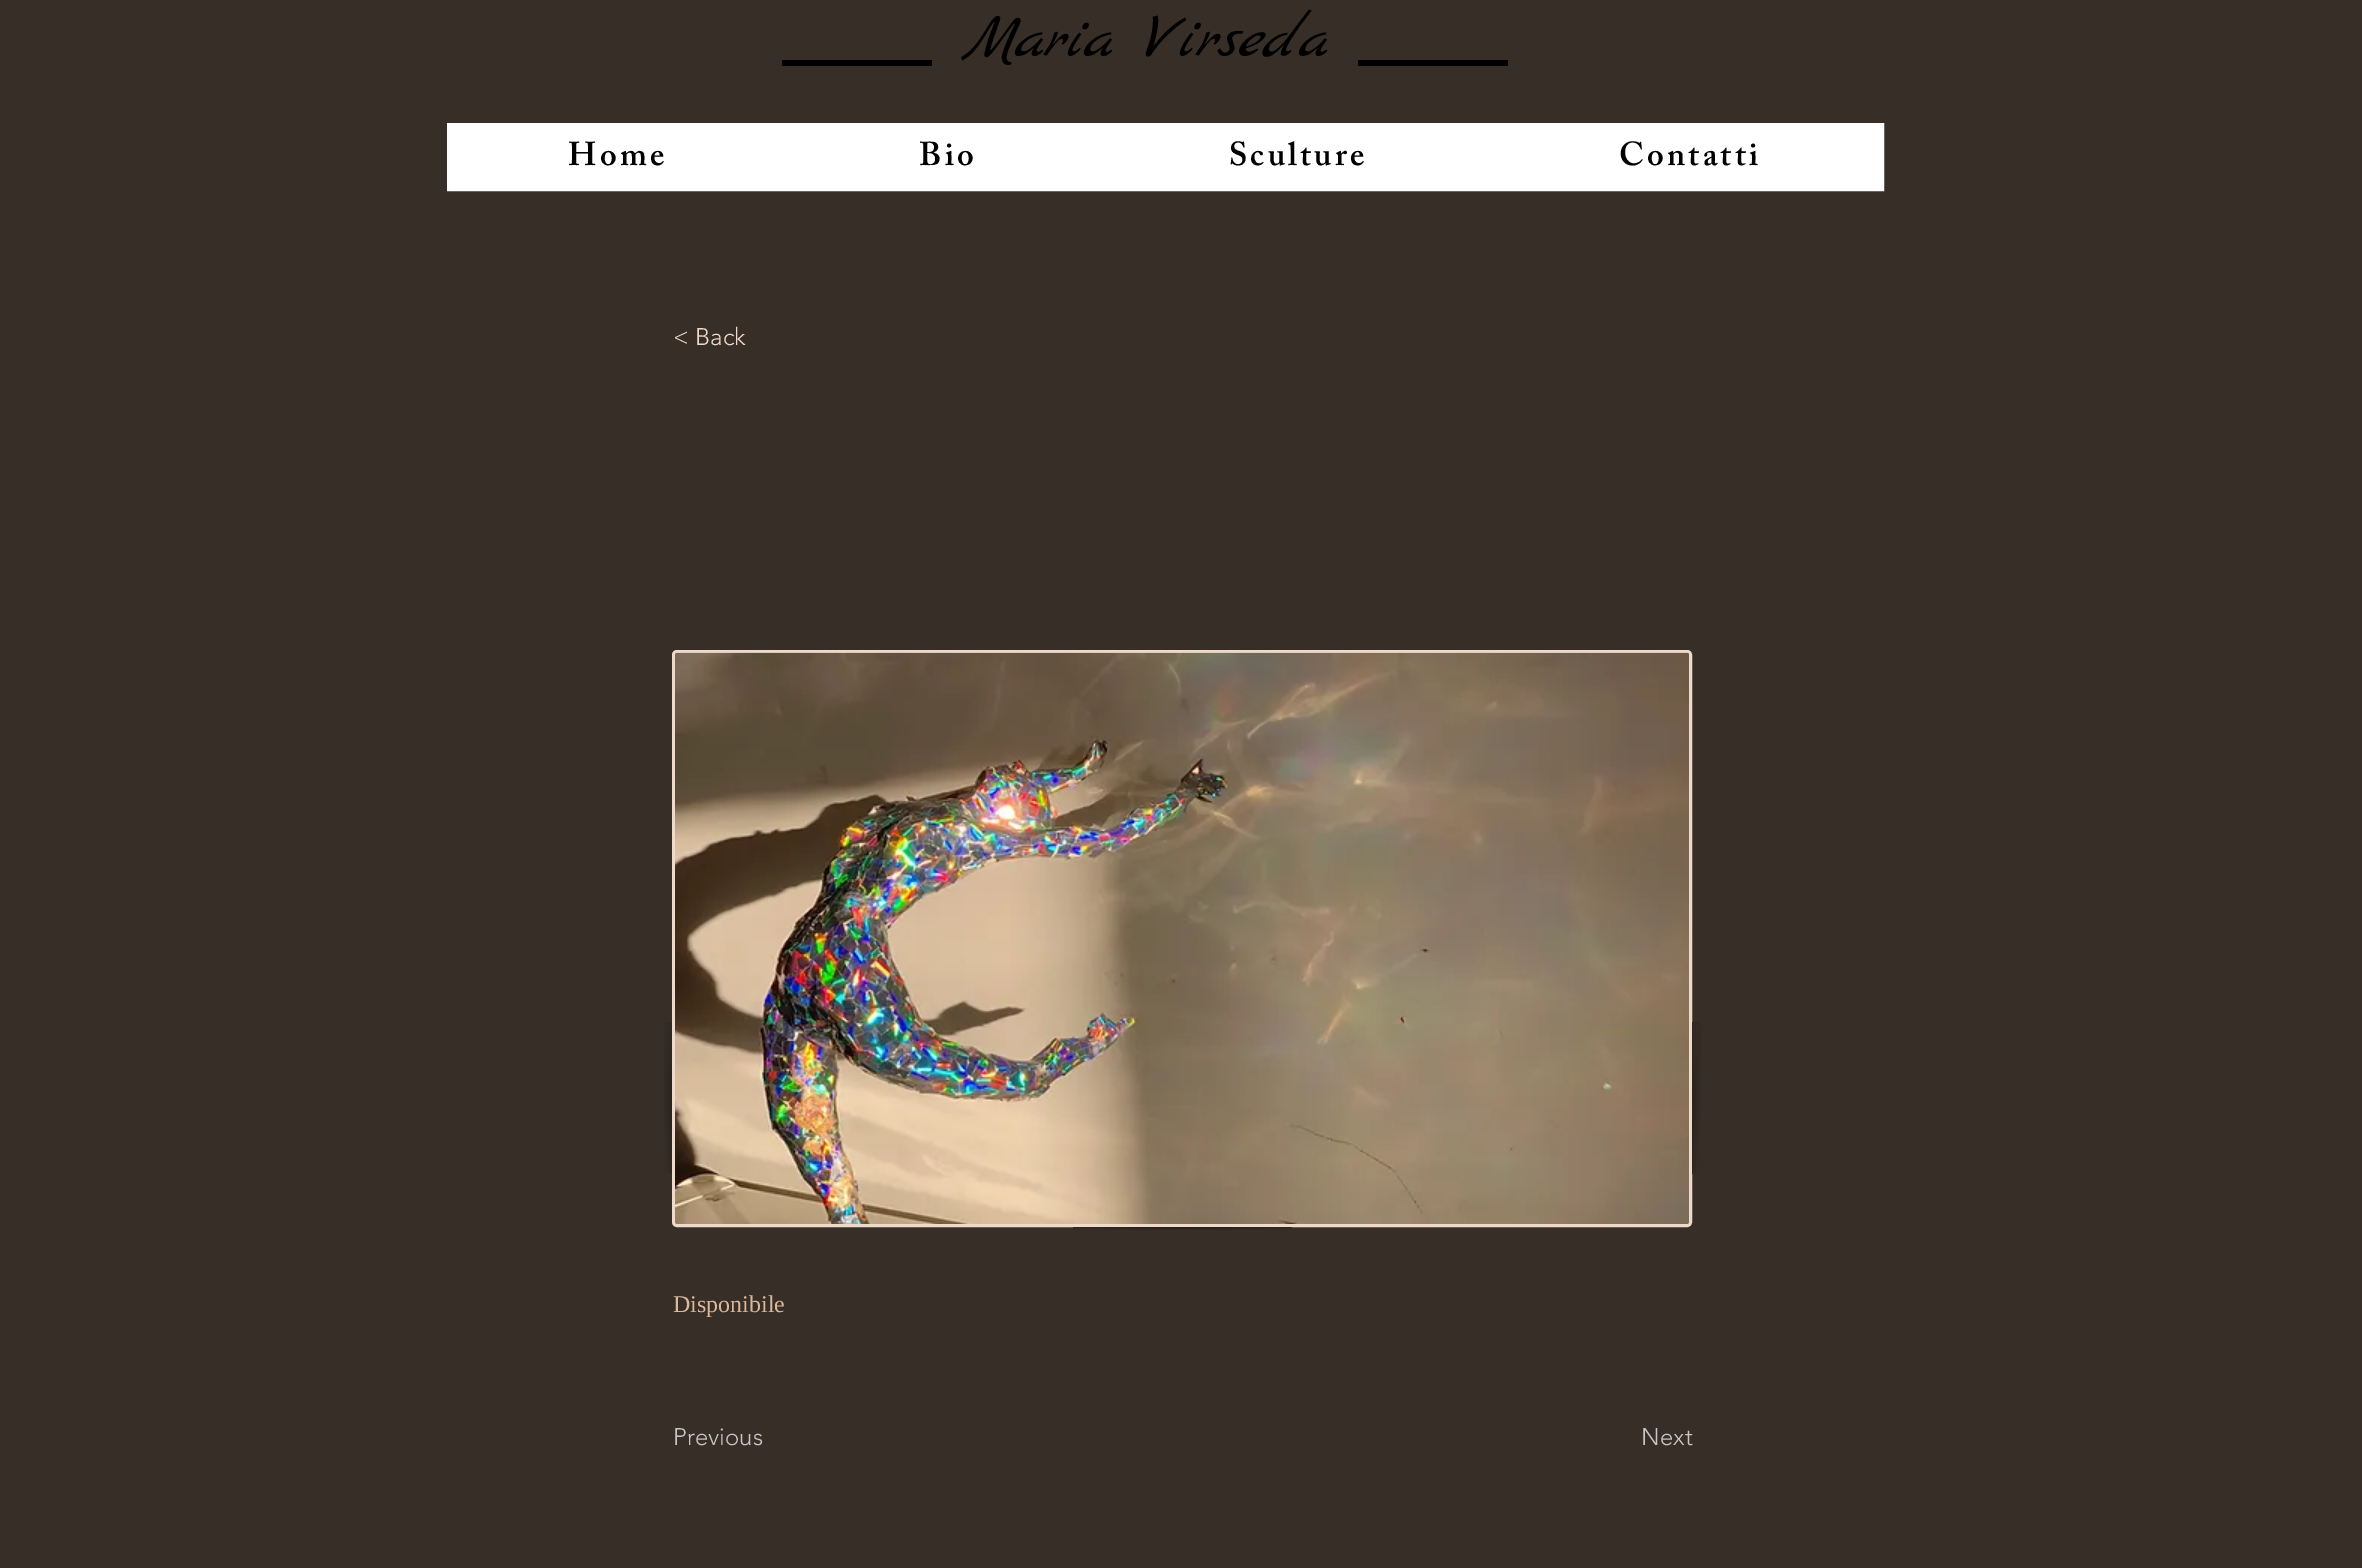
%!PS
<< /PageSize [2362 1568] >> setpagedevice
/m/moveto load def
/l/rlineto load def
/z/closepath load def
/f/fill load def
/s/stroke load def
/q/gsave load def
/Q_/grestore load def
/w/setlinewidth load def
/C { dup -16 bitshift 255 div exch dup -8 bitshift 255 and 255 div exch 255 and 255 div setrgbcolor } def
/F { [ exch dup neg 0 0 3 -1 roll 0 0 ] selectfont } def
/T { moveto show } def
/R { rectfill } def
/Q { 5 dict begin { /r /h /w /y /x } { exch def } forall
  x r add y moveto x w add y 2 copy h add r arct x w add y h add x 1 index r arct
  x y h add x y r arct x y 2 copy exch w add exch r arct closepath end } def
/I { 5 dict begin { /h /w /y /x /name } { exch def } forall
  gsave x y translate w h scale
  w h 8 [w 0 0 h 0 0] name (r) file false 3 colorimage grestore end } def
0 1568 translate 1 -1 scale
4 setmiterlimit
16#372E27 C
0 0 2362 1568 R
/MarckScript-Italic 63 F
16#000000 C
(Maria Virseda) 962 56 T
782 60 150 6 R
1358 60 150 6 R
16#FFFFFF C
448 124 m 1435 0 l 0 66 l -1435 0 l z q f Q_
16#FEFDFD C
2 w
s
/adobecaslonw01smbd-SemiBold 33 F
16#000000 C
568 165 m 3.25 0 (Home) ashow
919 165 m 3.25 0 (Bio) ashow
1229 165 m 3.25 0 (Sculture) ashow
1619 165 m 3.25 0 (Contatti) ashow
/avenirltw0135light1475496-Light 24 F
16#EDDACA C
(< Back) 673 345 T
(1.rgb) 664 1022 8 152 I
3 w
673.5 651.5 1017 574 3.5 Q s
(2.rgb) 675 652 1014 572 I
(3.rgb) 1073 1227 219 3 I
(4.rgb) 1692 1022 9 152 I
/LiberationSerif-Regular 24 F
16#DBB89A C
(Disponibile) 673 1312 T
/avenirltw0135light1475496-Light 24 F
16#C7C7C7 C
(Previous) 673 1445 T
(Next) 1641 1445 T
showpage
